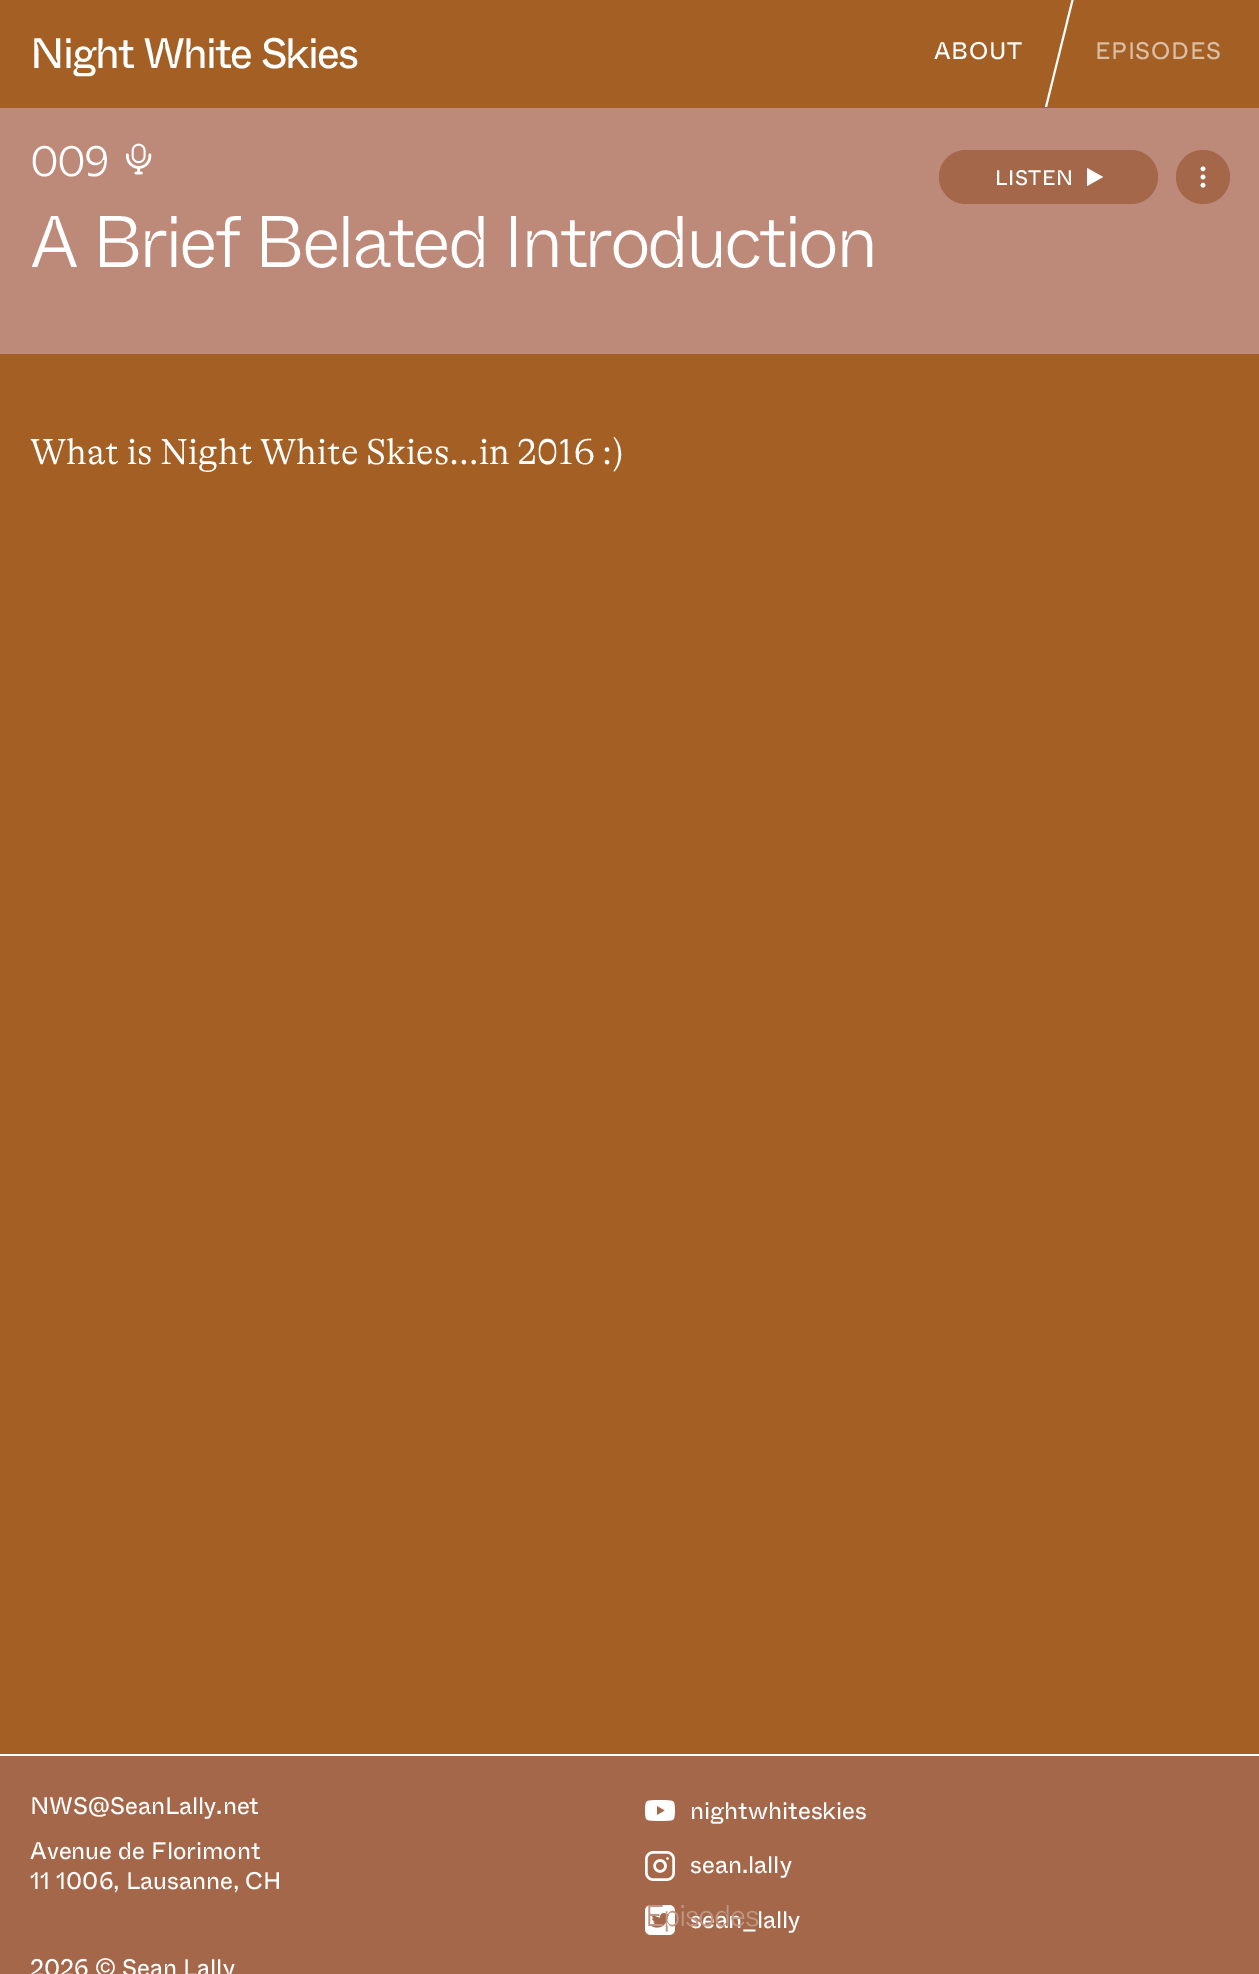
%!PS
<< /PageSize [1259 1974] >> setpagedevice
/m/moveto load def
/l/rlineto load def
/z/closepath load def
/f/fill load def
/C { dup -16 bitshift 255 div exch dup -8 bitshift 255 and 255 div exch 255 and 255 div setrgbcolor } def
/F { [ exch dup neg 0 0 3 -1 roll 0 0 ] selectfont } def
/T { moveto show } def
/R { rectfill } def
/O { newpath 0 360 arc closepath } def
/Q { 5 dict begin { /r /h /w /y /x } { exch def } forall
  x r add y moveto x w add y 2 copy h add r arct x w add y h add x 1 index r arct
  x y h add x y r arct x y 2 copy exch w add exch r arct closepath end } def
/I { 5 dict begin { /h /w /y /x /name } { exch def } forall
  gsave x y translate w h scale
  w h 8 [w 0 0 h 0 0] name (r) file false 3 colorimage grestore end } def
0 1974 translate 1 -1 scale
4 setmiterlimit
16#A35F24 C
0 0 1259 1974 R
/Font-Regular 42.5 F
16#FFFFFF C
30 68 m -1.75 0 (Night White Skies) ashow
/Font-Regular 24 F
934 59 m .75 0 (ABOUT) ashow
1073 -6 m 2 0 l -28 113 l -2 0 l z f
16#DABFA7 C
1095 59 m .75 0 (EPISODES) ashow
16#BD8979 C
0 108 1259 246 R
/Font-Light 42.5 F
16#FFFFFF C
30 176 m -1.75 0 (009) ashow
(1.rgb) 126 143 26 32 I
/Font-Light 72.75 F
30 267 m -3.25 0 (A Brief Belated Introduction) ashow
16#A4674A C
939 150 219 54 27 Q f
/Font-Regular 21 F
16#FFFFFF C
995 185 m .5 0 (LISTEN) ashow
1087 186 m 0 -18 l 16 9 l z f
16#A4674A C
1203 177 27 O f
16#FFFFFF C
1203 168.8 2.3 O f
1203 177 2.3 O f
1203 185.2 2.3 O f
/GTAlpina-Light 36.6 F
30 464 m -.5 0 32 (What is Night White Skies…in 2016 :\)) widthshow
16#A4674A C
0 1756 1259 218 R
16#FFFFFF C
0 1754 1259 2 R
/Font-Regular 24 F
(NWS@SeanLally.net) 30 1814 T
(Avenue de Florimont) 30 1859 T
(11 1006, Lausanne, CH) 30 1889 T
(2.rgb) 645 1800 30 21 I
(nightwhiteskies) 690 1819 T
(3.rgb) 645 1851 30 30 I
(sean.lally) 690 1873 T
(4.rgb) 645 1905 30 30 I
(sean_lally) 690 1928 T
(2026 © Sean Lally) 30 1976 T
/Font-Light 30 F
16#C09581 C
645 1926 m -1.25 0 (Episodes) ashow
showpage
